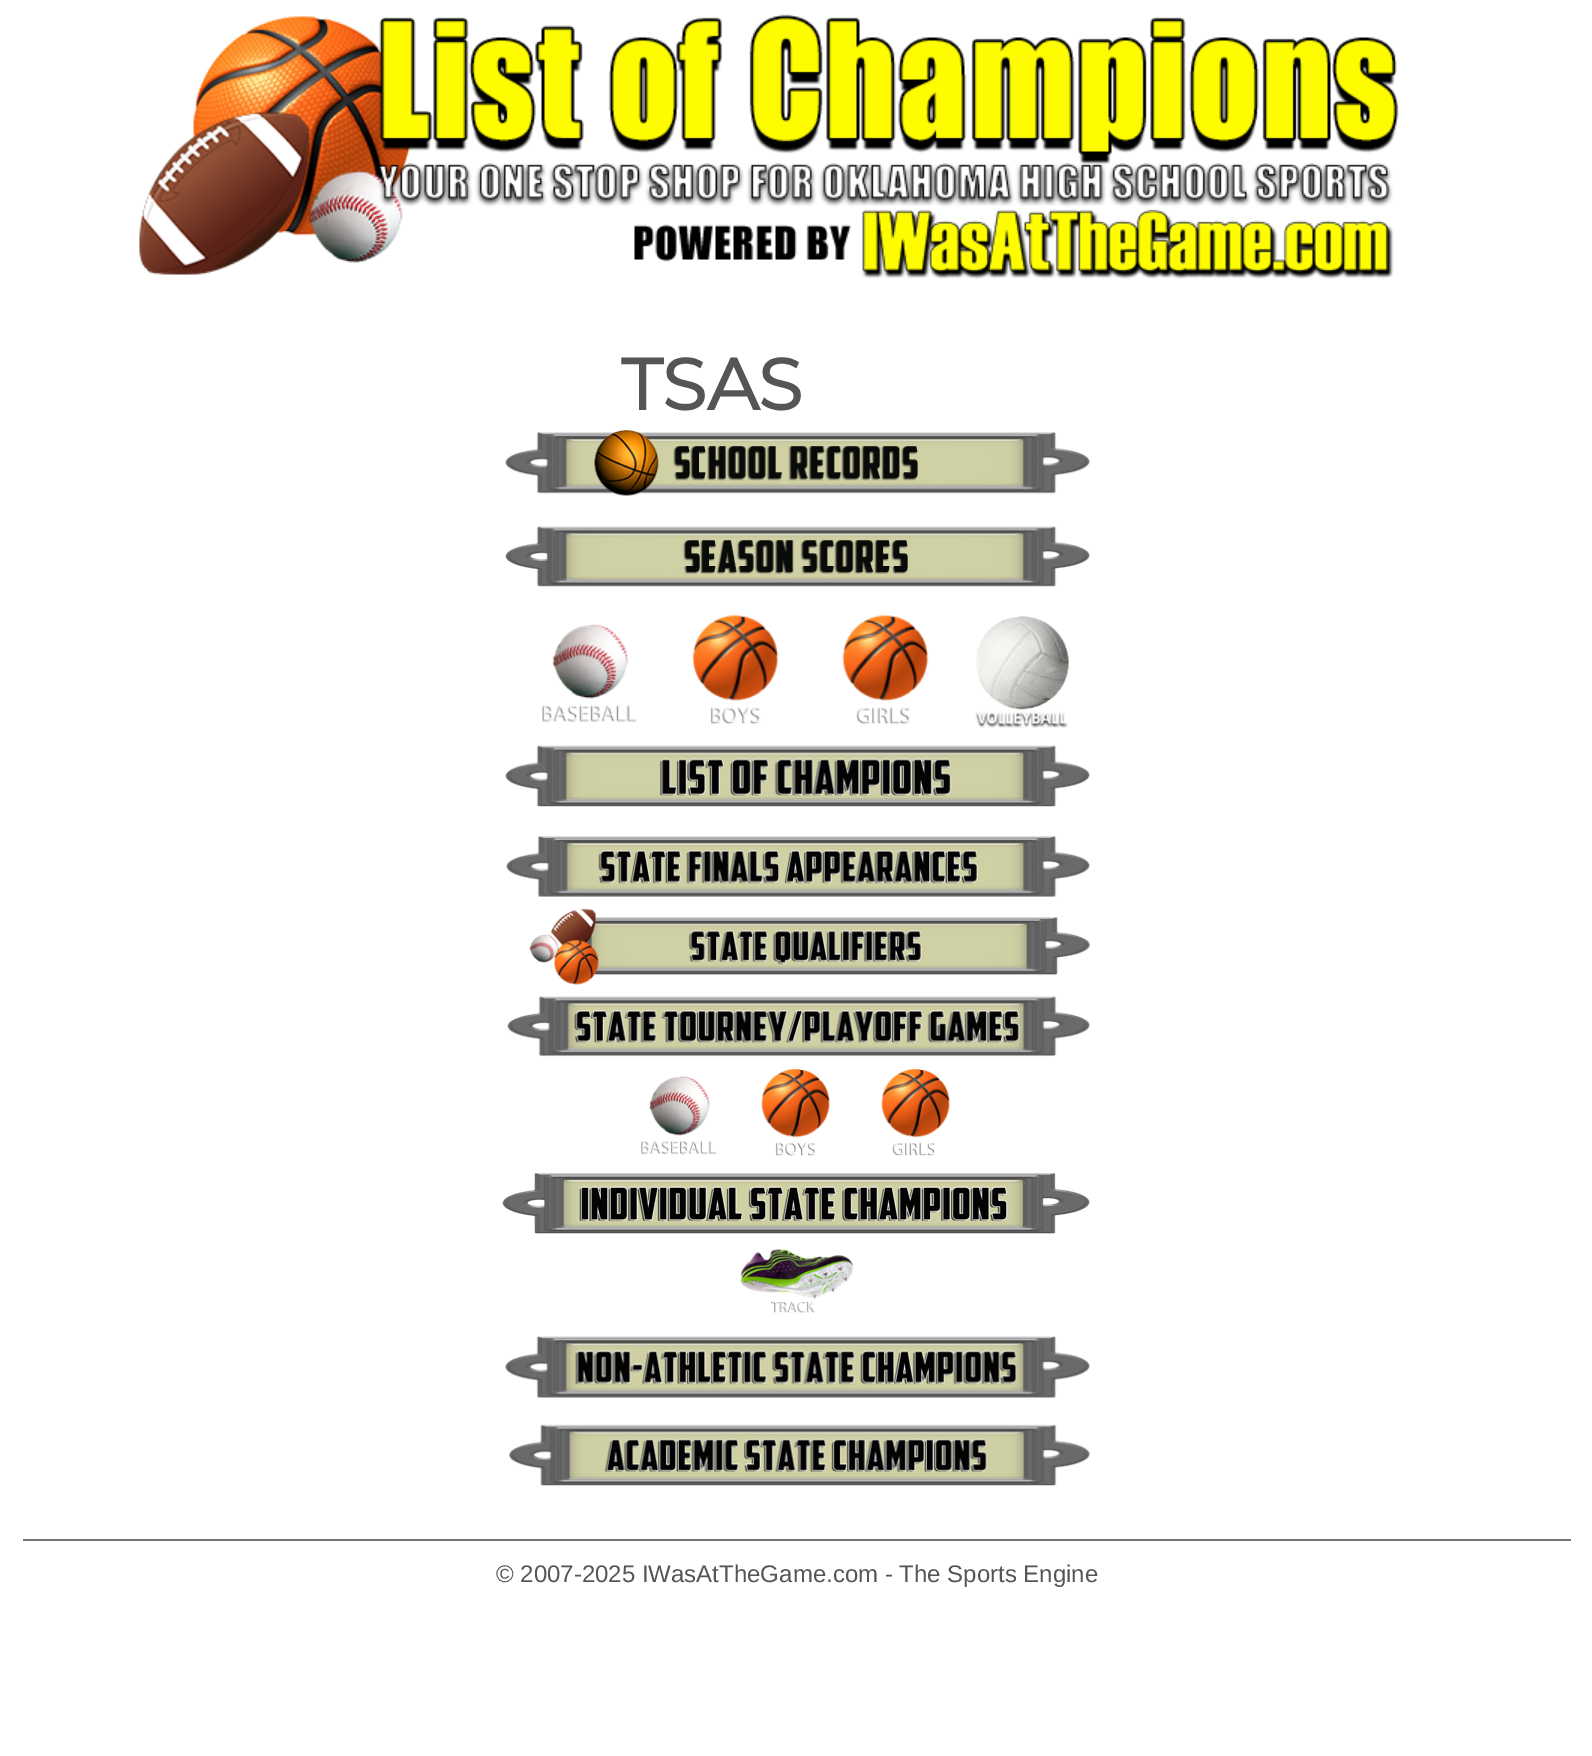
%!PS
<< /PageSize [1592 1756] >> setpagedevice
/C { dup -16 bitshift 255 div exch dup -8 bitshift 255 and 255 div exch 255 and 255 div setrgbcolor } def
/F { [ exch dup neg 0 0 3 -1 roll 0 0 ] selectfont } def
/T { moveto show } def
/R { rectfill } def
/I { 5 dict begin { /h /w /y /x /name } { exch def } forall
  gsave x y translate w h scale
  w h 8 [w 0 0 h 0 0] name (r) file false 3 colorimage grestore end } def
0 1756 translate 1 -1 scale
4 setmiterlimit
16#FFFFFF C
0 0 1592 1756 R
(1.rgb) 139 14 1260 265 I
/Montserrat-Bold 72 F
16#555555 C
(TSAS) 621 410 T
(2.rgb) 505 430 585 66 I
(3.rgb) 505 526 585 61 I
(4.rgb) 542 624 95 98 I
(5.rgb) 692 615 87 110 I
(6.rgb) 842 615 87 110 I
(7.rgb) 975 616 94 112 I
(8.rgb) 505 745 585 62 I
(9.rgb) 506 836 584 61 I
(10.rgb) 529 908 562 77 I
(11.rgb) 507 996 583 61 I
(12.rgb) 641 1076 76 79 I
(13.rgb) 761 1069 69 87 I
(14.rgb) 881 1069 69 87 I
(15.rgb) 502 1173 588 61 I
(16.rgb) 740 1249 114 64 I
(17.rgb) 505 1336 585 62 I
(18.rgb) 508 1424 582 62 I
16#767676 C
23 1539 1548 2 R
/LiberationSans-Regular 24 F
16#555555 C
(© 2007-2025 IWasAtTheGame.com - The Sports Engine) 496 1582 T
showpage
